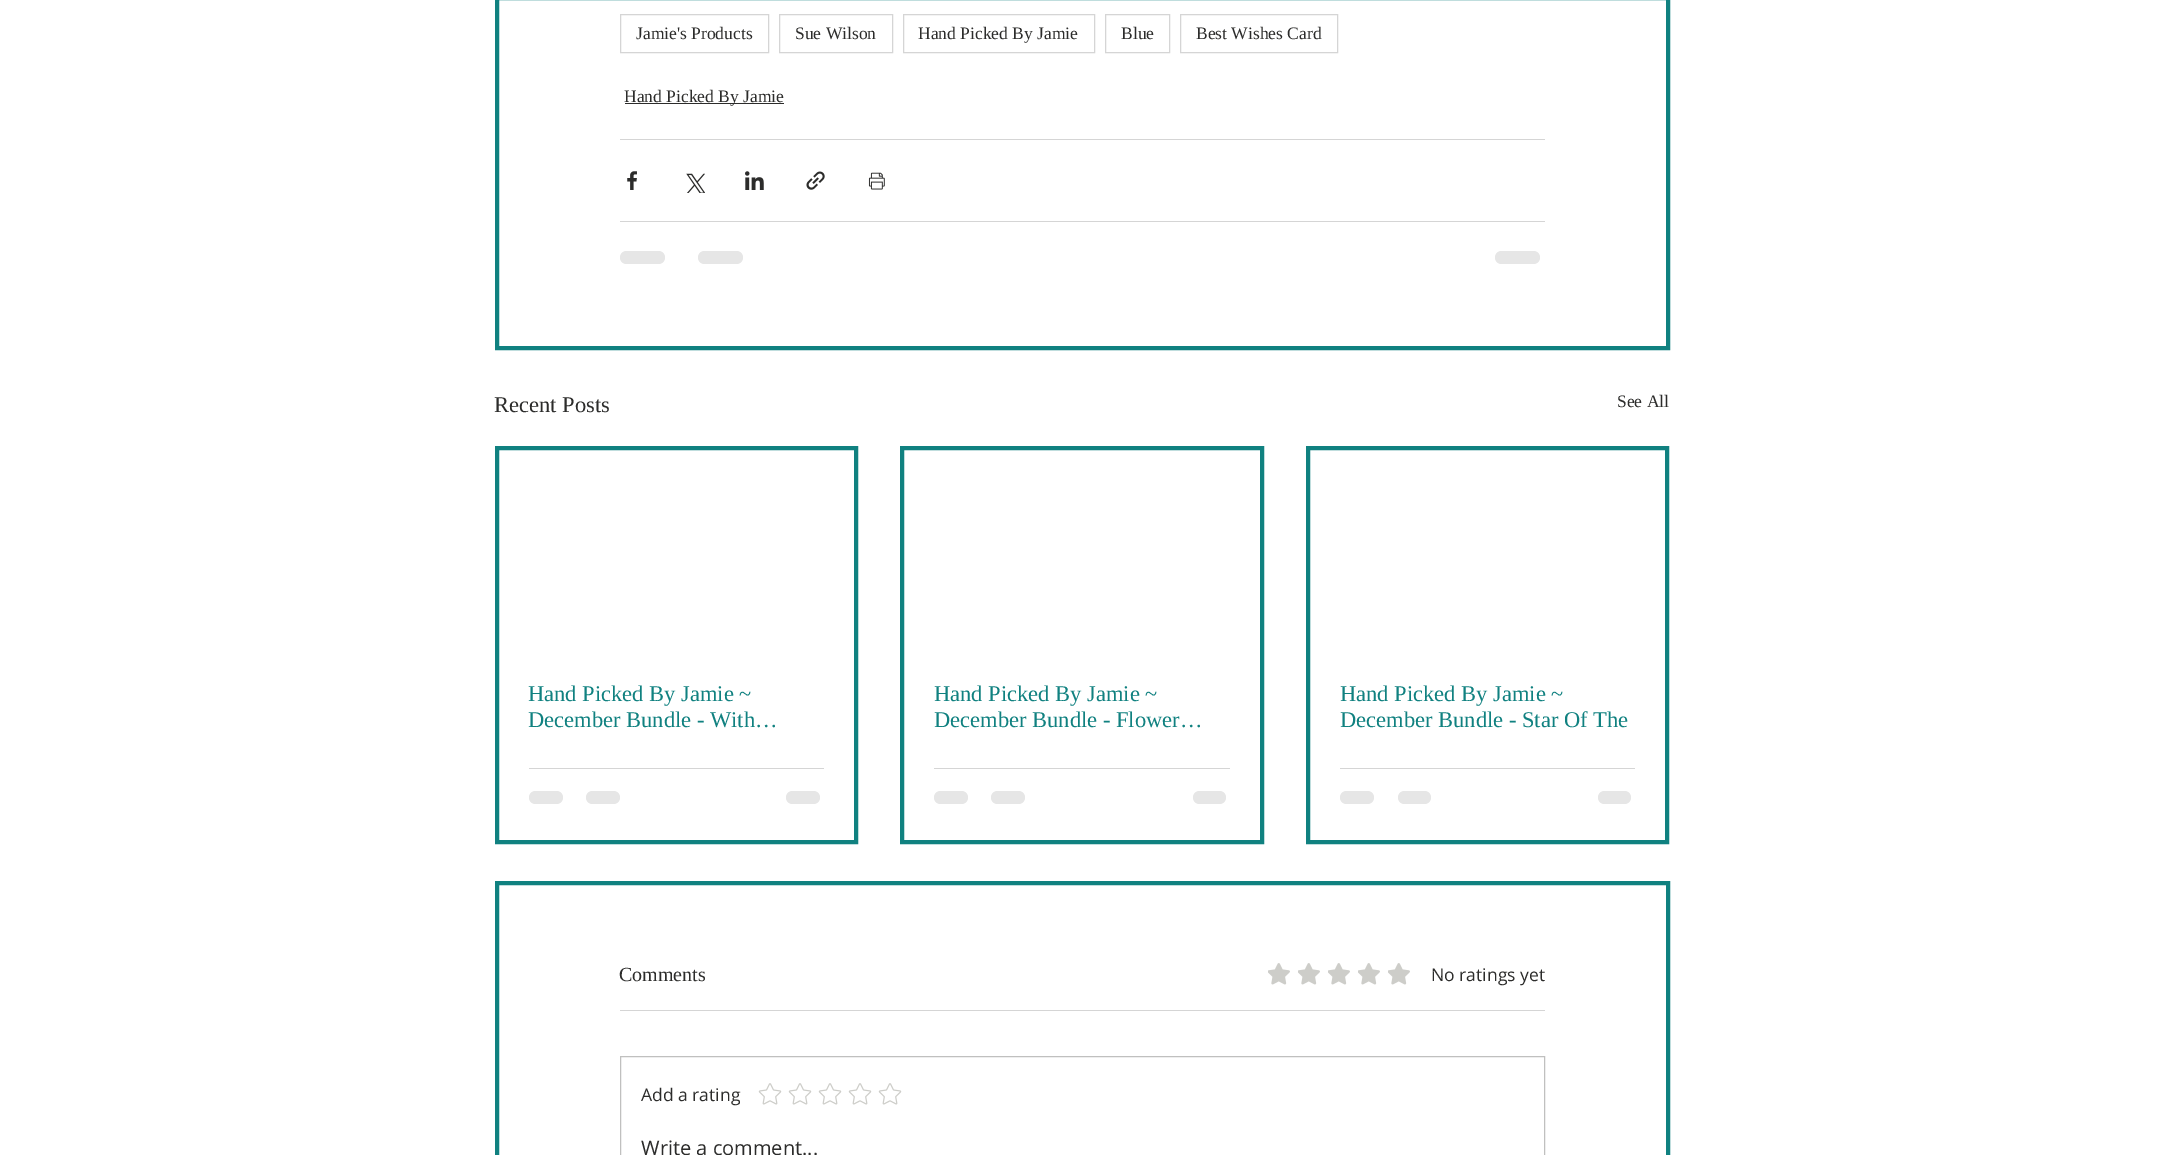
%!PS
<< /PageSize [2163 1155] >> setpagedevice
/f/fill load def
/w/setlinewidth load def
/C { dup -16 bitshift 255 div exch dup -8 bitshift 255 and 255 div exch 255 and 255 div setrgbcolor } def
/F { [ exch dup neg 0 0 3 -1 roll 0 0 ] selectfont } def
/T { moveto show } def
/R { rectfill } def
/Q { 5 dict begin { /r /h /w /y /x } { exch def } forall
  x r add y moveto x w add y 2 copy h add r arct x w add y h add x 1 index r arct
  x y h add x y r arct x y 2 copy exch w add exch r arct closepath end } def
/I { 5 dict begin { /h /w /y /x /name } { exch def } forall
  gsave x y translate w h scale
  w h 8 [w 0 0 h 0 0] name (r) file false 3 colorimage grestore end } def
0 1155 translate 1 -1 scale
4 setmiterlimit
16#FFFFFF C
0 0 2163 1155 R
16#108180 C
4 w
497 -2 1171 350 rectstroke
16#D5D5D5 C
1 w
620.5 14.5 148 38 rectstroke
/LiberationSerif-Regular 17.5 F
16#2C2C2B C
(Jamie's Products) 636 39 T
16#D5D5D5 C
779.5 14.5 113 38 rectstroke
16#2C2C2B C
(Sue Wilson) 795 39 T
16#D5D5D5 C
903.5 14.5 191 38 rectstroke
16#2C2C2B C
(Hand Picked By Jamie) 918 39 T
16#D5D5D5 C
1105.5 14.5 64 38 rectstroke
16#2C2C2B C
(Blue) 1121 39 T
16#D5D5D5 C
1180.5 14.5 157 38 rectstroke
16#2C2C2B C
(Best Wishes Card) 1196 39 T
625 103 159 1 R
(Hand Picked By Jamie) 624 102 T
16#D5D5D5 C
620 139 925 1 R
(1.rgb) 627 171 10 19 I
(2.rgb) 686 173 19 20 I
(3.rgb) 745 171 19 19 I
(4.rgb) 806 171 19 19 I
(5.rgb) 868 172 17 18 I
620 221 925 1 R
16#E6E6E6 C
620 251 45 13 6.5 Q f
698 251 45 13 6.5 Q f
1495 251 45 13 6.5 Q f
/LiberationSerif-Regular 22.5 F
16#2C2C2B C
(Recent Posts) 494 412 T
/LiberationSerif-Regular 17.5 F
(See All) 1617 407 T
16#108180 C
4 w
497 448 359 394 rectstroke
/LiberationSerif-Regular 22.5 F
(Hand Picked By Jamie ~) 528 701 T
(December Bundle - With…) 528 727 T
16#D5D5D5 C
529 768 295 1 R
16#E6E6E6 C
529 791 34 13 6.5 Q f
586 791 34 13 6.5 Q f
786 791 34 13 6.5 Q f
16#108180 C
902 448 360 394 rectstroke
(Hand Picked By Jamie ~) 934 701 T
(December Bundle - Flower…) 934 727 T
16#D5D5D5 C
934 768 296 1 R
16#E6E6E6 C
934 791 34 13 6.5 Q f
991 791 34 13 6.5 Q f
1193 791 33 13 6.5 Q f
16#108180 C
1308 448 359 394 rectstroke
(Hand Picked By Jamie ~) 1340 701 T
(December Bundle - Star Of The) 1340 727 T
16#D5D5D5 C
1340 768 295 1 R
16#E6E6E6 C
1340 791 34 13 6.5 Q f
1398 791 33 13 6.5 Q f
1598 791 33 13 6.5 Q f
16#108180 C
497 883 1171 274 rectstroke
/LiberationSerif-Regular 20 F
16#2C2C2B C
(Comments) 619 981 T
(6.rgb) 1268 963 22 22 I
(6.rgb) 1298 963 22 22 I
(6.rgb) 1328 963 22 22 I
(6.rgb) 1358 963 22 22 I
(6.rgb) 1388 963 22 22 I
/OpenSans-Regular 17.5 F
(No ratings yet) 1431 981 T
16#D5D5D5 C
620 1010 925 1 R
16#C0C0BF C
1 w
620.5 1056.5 924 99 rectstroke
16#2C2C2B C
(Add a rating) 641 1101 T
(7.rgb) 758 1083 24 22 I
(7.rgb) 788 1083 24 22 I
(7.rgb) 818 1083 24 22 I
(7.rgb) 848 1083 24 22 I
(7.rgb) 878 1083 24 22 I
/OpenSans-Regular 20 F
(Write a comment...) 641 1155 T
showpage
